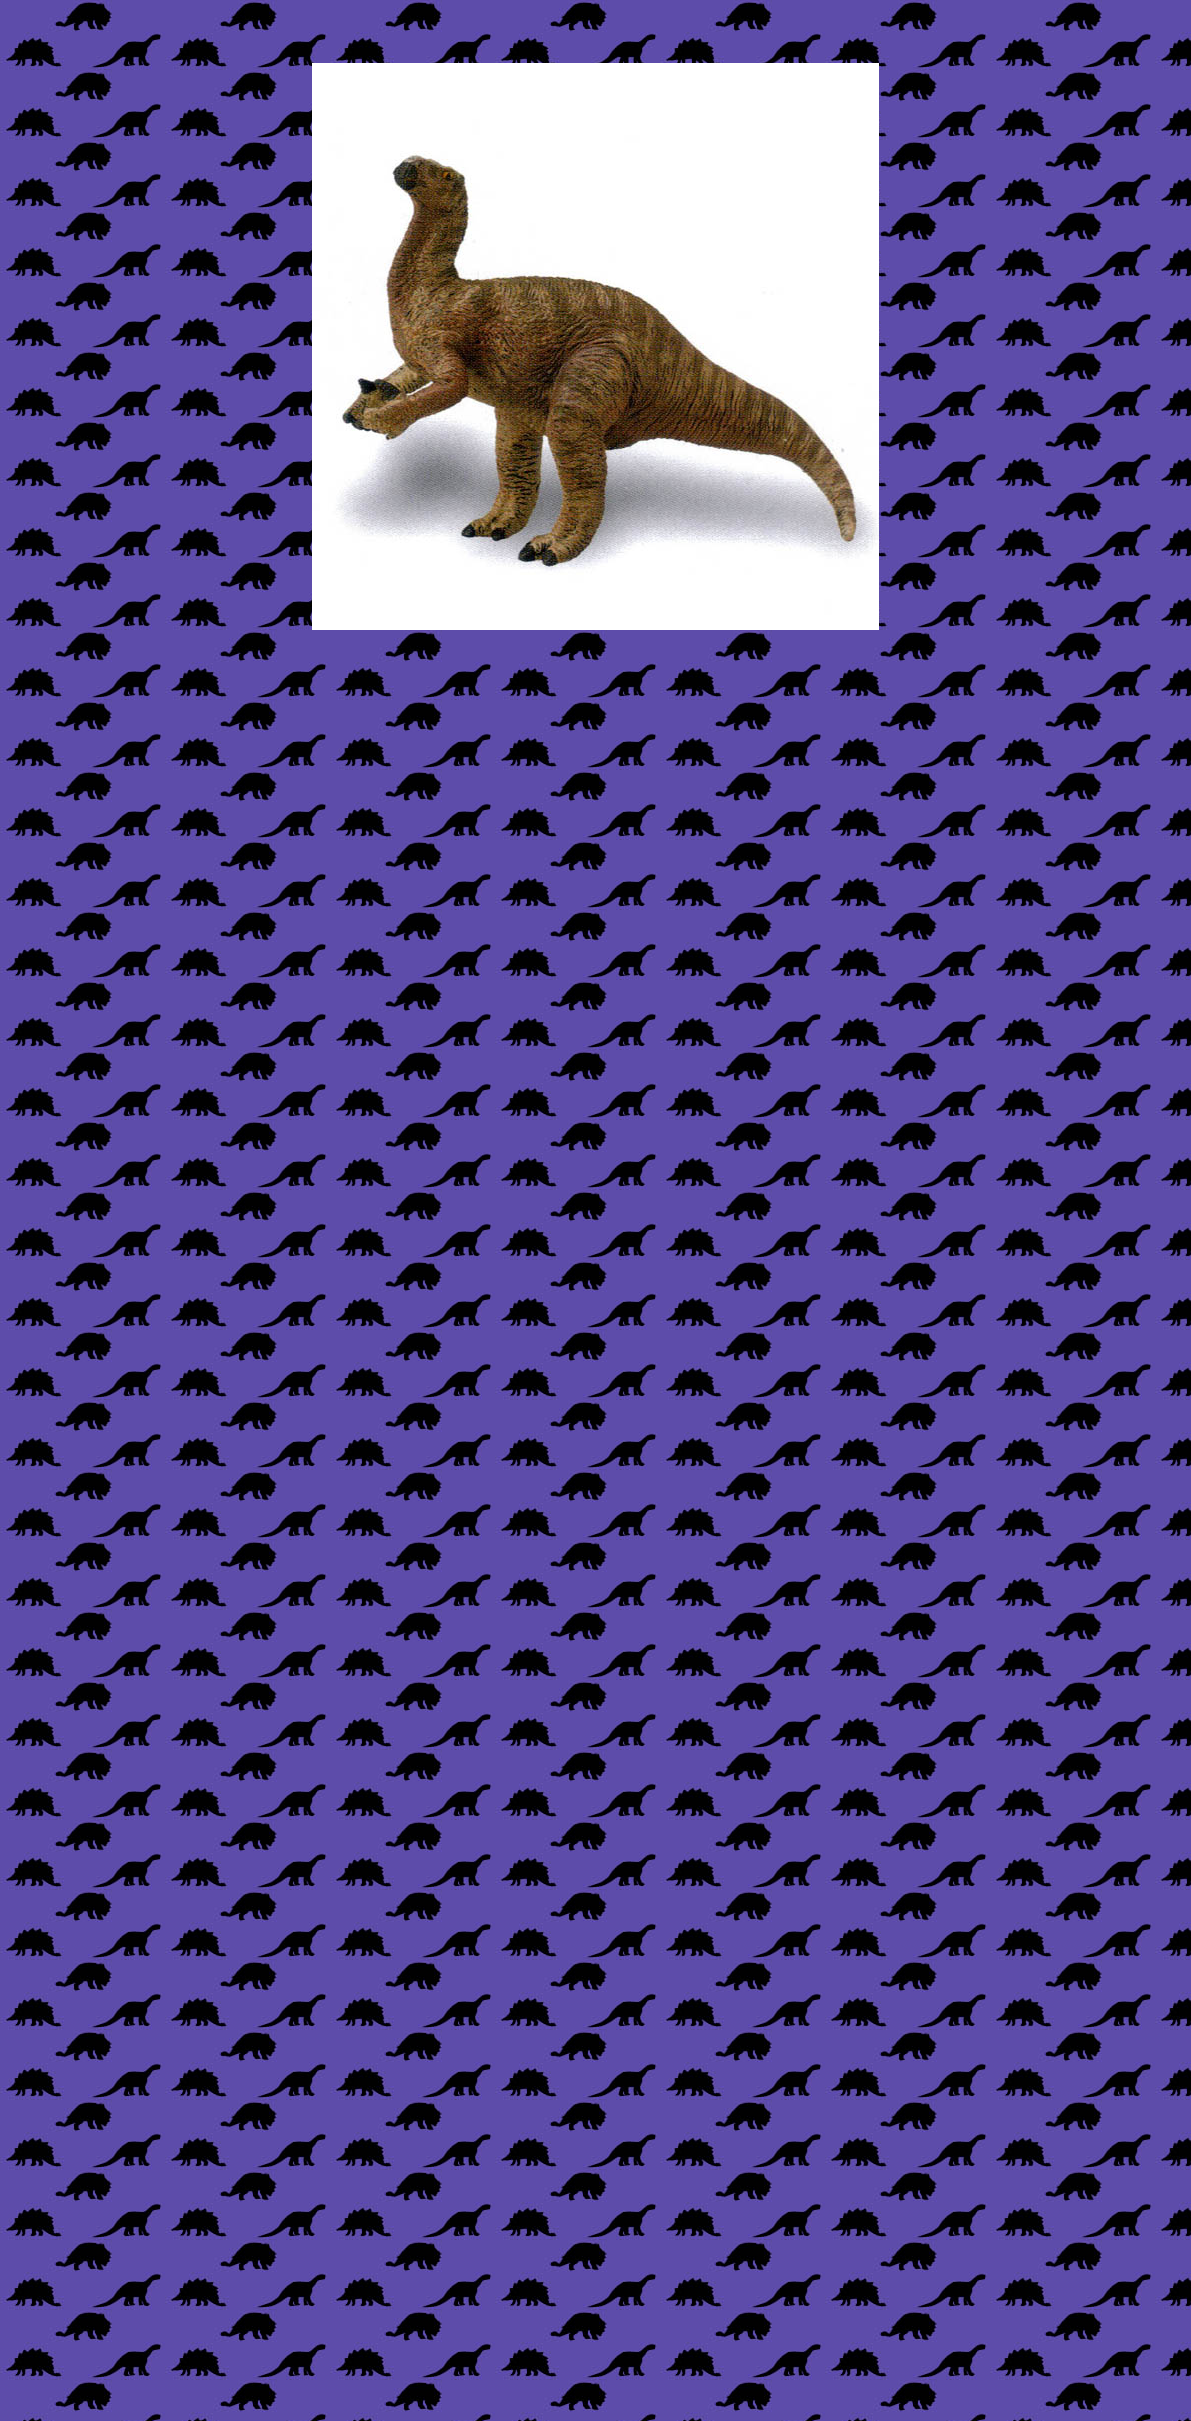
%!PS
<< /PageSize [1191 2421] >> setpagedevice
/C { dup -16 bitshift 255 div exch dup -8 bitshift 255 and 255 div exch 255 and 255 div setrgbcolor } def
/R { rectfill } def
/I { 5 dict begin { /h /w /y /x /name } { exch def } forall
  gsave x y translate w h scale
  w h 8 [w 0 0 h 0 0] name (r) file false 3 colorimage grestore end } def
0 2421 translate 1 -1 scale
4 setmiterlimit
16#FFFFFF C
0 0 1191 2421 R
(1.rgb) 0 0 1191 2421 I
(2.rgb) 312 63 567 567 I
showpage
